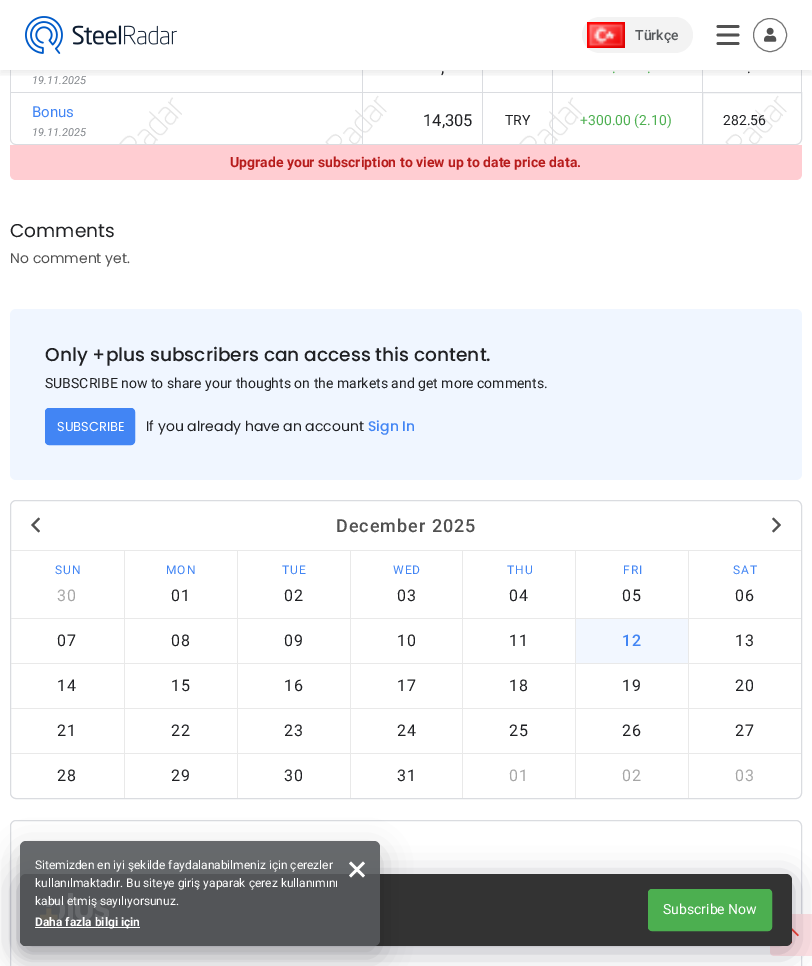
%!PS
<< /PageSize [812 966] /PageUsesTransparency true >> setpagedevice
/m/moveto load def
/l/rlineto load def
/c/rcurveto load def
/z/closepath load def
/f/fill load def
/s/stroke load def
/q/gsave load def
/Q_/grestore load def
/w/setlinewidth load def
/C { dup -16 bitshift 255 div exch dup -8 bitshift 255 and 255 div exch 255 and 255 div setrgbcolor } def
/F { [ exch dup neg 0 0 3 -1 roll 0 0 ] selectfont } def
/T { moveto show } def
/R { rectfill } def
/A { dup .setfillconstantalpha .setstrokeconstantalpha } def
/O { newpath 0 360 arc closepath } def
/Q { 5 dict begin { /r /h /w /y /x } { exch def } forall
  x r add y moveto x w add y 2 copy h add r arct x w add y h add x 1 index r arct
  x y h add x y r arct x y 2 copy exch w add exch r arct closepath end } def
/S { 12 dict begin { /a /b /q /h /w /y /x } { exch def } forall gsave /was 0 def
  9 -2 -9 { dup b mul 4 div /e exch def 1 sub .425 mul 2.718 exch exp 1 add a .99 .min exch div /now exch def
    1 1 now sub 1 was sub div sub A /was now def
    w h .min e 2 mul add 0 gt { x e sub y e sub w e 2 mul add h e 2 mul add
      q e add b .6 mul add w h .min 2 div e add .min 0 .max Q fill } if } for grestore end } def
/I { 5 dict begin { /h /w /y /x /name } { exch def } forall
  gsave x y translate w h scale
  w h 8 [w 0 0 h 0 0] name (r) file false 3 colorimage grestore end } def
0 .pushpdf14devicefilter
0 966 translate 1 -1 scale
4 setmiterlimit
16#FFFFFF C
0 0 812 966 R
16#DADCE0 C
362 70 1 22 R
482 70 1 22 R
552 70 1 22 R
801 70 1 22 R
702 70 1 22 R
10 70 1 22 R
q
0 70 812 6 rectclip
16#000000 C
0 4 812 70 0 4 .07 S
Q_
(1.rgb) 25 16 152 38 I
16#F3F3F3 C
582 17 111 36 18 Q f
(2.rgb) 587 22 38 26 I
/Roboto-Medium 14 F
16#56595C C
(Türkçe) 635 40 T
16#515151 C
2.8 w
1 setlinecap
718 26.5 m 20 0 l 718 35 m 20 0 l 718 43.5 m 20 0 l s
16#757575 C
1 w
0 setlinecap
770 35 16.5 O s
(3.rgb) 764 27 13 15 I
/Roboto-Regular 16.5 F
16#202124 C
(,) 441 73 T
/Roboto-Regular 14 F
16#4CAF50 C
(.) 612 73 T
(.) 647 73 T
16#202124 C
(.) 747 73 T
/Roboto-Italic 11 F
16#808489 C
(19.11.2025) 32 84 T
(4.rgb) 119 95 668 49 I
16#DADCE0 C
10 92 m 352 0 l 0 53 l -346 0 l -3 0 -6 -3 -6 -6 c z 11 93 m 351 0 l 0 51 l -346 0 l -3 0 -5 -2 -5 -5 c z eofill
/Roboto-Regular 15 F
16#4285F4 C
(Bonus) 32 117 T
/Roboto-Italic 11 F
16#808489 C
(19.11.2025) 32 136 T
16#DADCE0 C
362 92 340 1 R
362 144 340 1 R
362 92 1 53 R
/Roboto-Regular 16.5 F
16#202124 C
(14,305) 423 126 T
16#DADCE0 C
482 92 1 53 R
/Roboto-Regular 14 F
16#202124 C
(TRY) 505 125 T
16#DADCE0 C
552 92 1 53 R
16#4CAF50 C
(+300.00 \(2.10\)) 580 125 T
16#DADCE0 C
702.5 92.5 m 99 0 l 0 46.5 l 0 3 -2.5 5.5 -5.5 5.5 c -93.5 0 l z s
16#202124 C
(282.56) 723 125 T
16#FFCDD2 C
10 145 m 792 0 l 0 29 l 0 3.5 -2.5 6 -6 6 c -780 0 l -3.5 0 -6 -2.5 -6 -6 c z f
/Roboto-Bold 14 F
16#B71C1C C
(Upgrade your subscription to view up to date price data.) 230 167 T
/Poppins-Regular 18.6 F
16#202124 C
(Comments) 10 237 T
/Poppins-Regular 14 F
16#515151 C
(No comment yet.) 10 263 T
16#F0F6FF C
10 309 792 171 6 Q f
/Poppins-Medium 18.6 F
16#202124 C
(Only +plus subscribers can access this content.) 45 361 T
/Roboto-Regular 14 F
(SUBSCRIBE now to share your thoughts on the markets and get more comments.) 45 388 T
16#4285F4 C
45.5 408.5 89 36 3.5 Q q f Q_
s
/Poppins-Regular 13 F
16#FFFFFF C
(SUBSCRIBE) 57 431 T
/Poppins-Regular 14 F
16#202124 C
(If you already have an account) 146 431 T
/Poppins-Medium 14 F
16#4285F4 C
(Sign In) 368 431 T
16#DADCE0 C
10.5 500.5 791 298 5.5 Q s
16#E9E9E9 C
11 550 790 1 R
(5.rgb) 31 517 9 16 I
/Roboto-Medium 18 F
16#515151 C
336 532 m 1 0 (December 2025) ashow
(6.rgb) 772 517 9 16 I
16#E9E9E9 C
11 618 790 1 R
/Roboto-Regular 12 F
16#4285F4 C
55 574 m 1 0 (SUN) ashow
/Roboto-Regular 16 F
16#A6A6A6 C
57 601 m 1 0 (30) ashow
16#E9E9E9 C
124 551 1 68 R
/Roboto-Regular 12 F
16#4285F4 C
166 574 m 1 0 (MON) ashow
/Roboto-Regular 16 F
16#202124 C
171 601 m 1 0 (01) ashow
16#E9E9E9 C
237 551 1 68 R
/Roboto-Regular 12 F
16#4285F4 C
282 574 m 1 0 (TUE) ashow
/Roboto-Regular 16 F
16#202124 C
284 601 m 1 0 (02) ashow
16#E9E9E9 C
350 551 1 68 R
/Roboto-Regular 12 F
16#4285F4 C
393 574 m 1 0 (WED) ashow
/Roboto-Regular 16 F
16#202124 C
397 601 m 1 0 (03) ashow
16#E9E9E9 C
462 551 1 68 R
/Roboto-Regular 12 F
16#4285F4 C
507 574 m 1 0 (THU) ashow
/Roboto-Regular 16 F
16#202124 C
509 601 m 1 0 (04) ashow
16#E9E9E9 C
575 551 1 68 R
/Roboto-Regular 12 F
16#4285F4 C
623 574 m 1 0 (FRI) ashow
/Roboto-Regular 16 F
16#202124 C
622 601 m 1 0 (05) ashow
16#E9E9E9 C
688 551 1 68 R
/Roboto-Regular 12 F
16#4285F4 C
733 574 m 1 0 (SAT) ashow
/Roboto-Regular 16 F
16#202124 C
735 601 m 1 0 (06) ashow
16#E9E9E9 C
11 663 790 1 R
16#202124 C
57 646 m 1 0 (07) ashow
16#E9E9E9 C
124 619 1 45 R
16#202124 C
171 646 m 1 0 (08) ashow
16#E9E9E9 C
237 619 1 45 R
16#202124 C
284 646 m 1 0 (09) ashow
16#E9E9E9 C
350 619 1 45 R
16#202124 C
397 646 m 1 0 (10) ashow
16#E9E9E9 C
462 619 1 45 R
16#202124 C
509 646 m 1 0 (11) ashow
16#F2F7FF C
576 619 112 44 R
16#E9E9E9 C
575 619 1 45 R
/Roboto-Medium 16 F
16#4285F4 C
622 646 m 1 0 (12) ashow
16#E9E9E9 C
688 619 1 45 R
/Roboto-Regular 16 F
16#202124 C
735 646 m 1 0 (13) ashow
16#E9E9E9 C
11 708 790 1 R
16#202124 C
57 691 m 1 0 (14) ashow
16#E9E9E9 C
124 664 1 45 R
16#202124 C
171 691 m 1 0 (15) ashow
16#E9E9E9 C
237 664 1 45 R
16#202124 C
284 691 m 1 0 (16) ashow
16#E9E9E9 C
350 664 1 45 R
16#202124 C
397 691 m 1 0 (17) ashow
16#E9E9E9 C
462 664 1 45 R
16#202124 C
509 691 m 1 0 (18) ashow
16#E9E9E9 C
575 664 1 45 R
16#202124 C
622 691 m 1 0 (19) ashow
16#E9E9E9 C
688 664 1 45 R
16#202124 C
735 691 m 1 0 (20) ashow
16#E9E9E9 C
11 753 790 1 R
16#202124 C
57 736 m 1 0 (21) ashow
16#E9E9E9 C
124 709 1 89 R
16#202124 C
171 736 m 1 0 (22) ashow
16#E9E9E9 C
237 709 1 89 R
16#202124 C
284 736 m 1 0 (23) ashow
16#E9E9E9 C
350 709 1 89 R
16#202124 C
397 736 m 1 0 (24) ashow
16#E9E9E9 C
462 709 1 89 R
16#202124 C
509 736 m 1 0 (25) ashow
16#E9E9E9 C
575 709 1 89 R
16#202124 C
622 736 m 1 0 (26) ashow
16#E9E9E9 C
688 709 1 89 R
16#202124 C
735 736 m 1 0 (27) ashow
57 781 m 1 0 (28) ashow
171 781 m 1 0 (29) ashow
284 781 m 1 0 (30) ashow
397 781 m 1 0 (31) ashow
16#A6A6A6 C
509 781 m 1 0 (01) ashow
622 781 m 1 0 (02) ashow
735 781 m 1 0 (03) ashow
16#DADCE0 C
10.5 820.5 791 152 5.5 Q s
16#FFE2E5 C
774 914 m 38 0 l 0 42 l -38 0 l -2 0 -4 -2 -4 -4 c 0 -34 l 0 -2 2 -4 4 -4 c z f
(8.rgb) 790 928 9 16 I
16#050421 C
20 879 772 72 6 15 .3 S
16#333333 C
20 874 772 72 6 Q f
(7.rgb) 40 893 69 33 I
q
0 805 m 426 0 l 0 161 l -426 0 l z 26 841 m 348 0 l 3.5 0 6 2.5 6 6 c 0 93 l 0 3.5 -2.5 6 -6 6 c -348 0 l -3.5 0 -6 -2.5 -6 -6 c 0 -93 l 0 -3.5 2.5 -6 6 -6 c z eoclip newpath
16#000000 C
20 851 360 105 6 15 .2 S
Q_
0.9 A
16#56595C C
20 841 360 105 6 Q f
/Roboto-Regular 12 F
1 A
16#FFFFFF C
(Sitemizden en iyi şekilde faydalanabilmeniz için çerezler) 35 869 T
(kullanılmaktadır. Bu siteye giriş yaparak çerez kullanımını) 35 887 T
(kabul etmiş sayılıyorsunuz.) 35 905 T
35 927 105 1 R
/Roboto-Bold 12 F
(Daha fazla bilgi için) 35 926 T
349 875.5 m 14 -14 l 2 2 l -14 14 l z f
351 861.5 m 14 14 l -2 2 l -14 -14 l z f
16#4CAF50 C
648.5 889.5 123 41 3.5 Q q f Q_
s
/Roboto-Regular 14 F
16#FFFFFF C
(Subscribe Now) 663 914 T
.poppdf14devicefilter showpage
